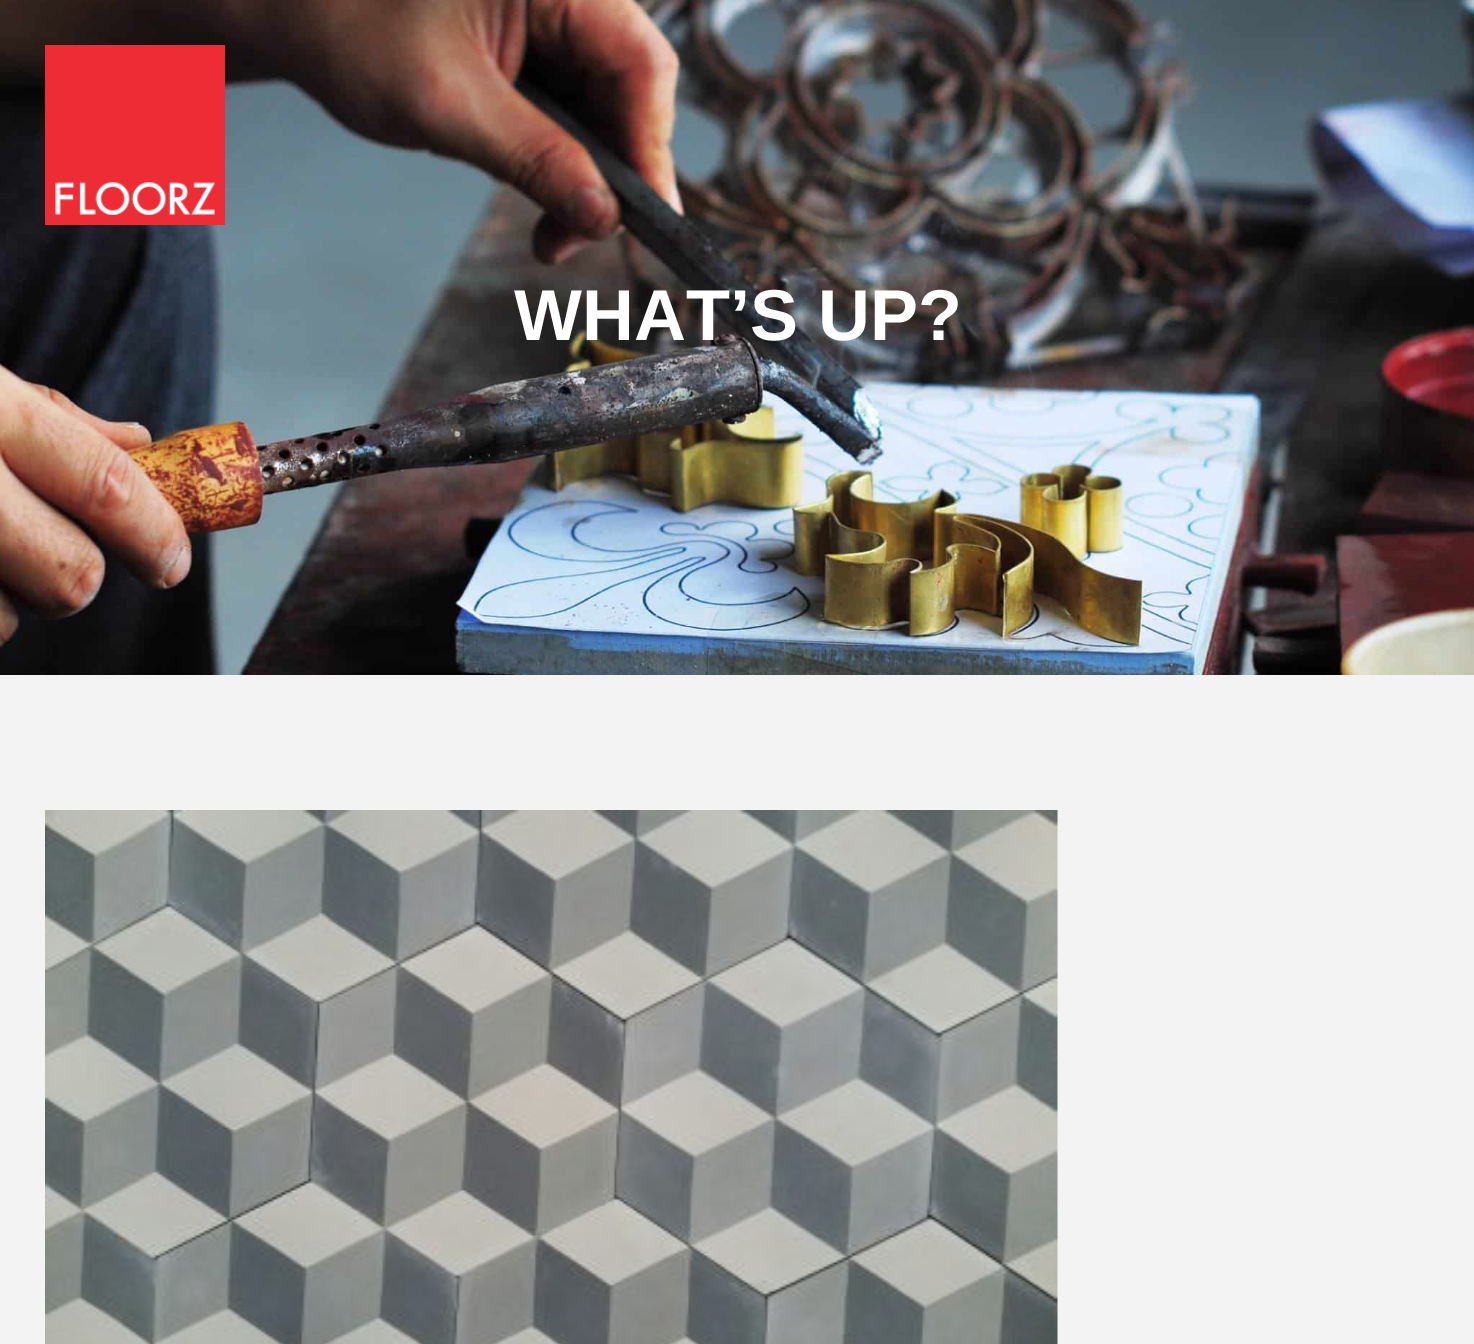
%!PS
<< /PageSize [1474 1344] >> setpagedevice
/C { dup -16 bitshift 255 div exch dup -8 bitshift 255 and 255 div exch 255 and 255 div setrgbcolor } def
/F { [ exch dup neg 0 0 3 -1 roll 0 0 ] selectfont } def
/T { moveto show } def
/R { rectfill } def
/I { 5 dict begin { /h /w /y /x /name } { exch def } forall
  gsave x y translate w h scale
  w h 8 [w 0 0 h 0 0] name (r) file false 3 colorimage grestore end } def
0 1344 translate 1 -1 scale
4 setmiterlimit
16#F3F3F3 C
0 0 1474 1344 R
(2.rgb) 0 0 1474 675 I
(1.rgb) 45 45 180 180 I
/LiberationSans-Bold 72 F
16#FFFFFF C
(WHAT’S UP?) 514 340 T
(3.rgb) 45 810 1013 534 I
showpage
